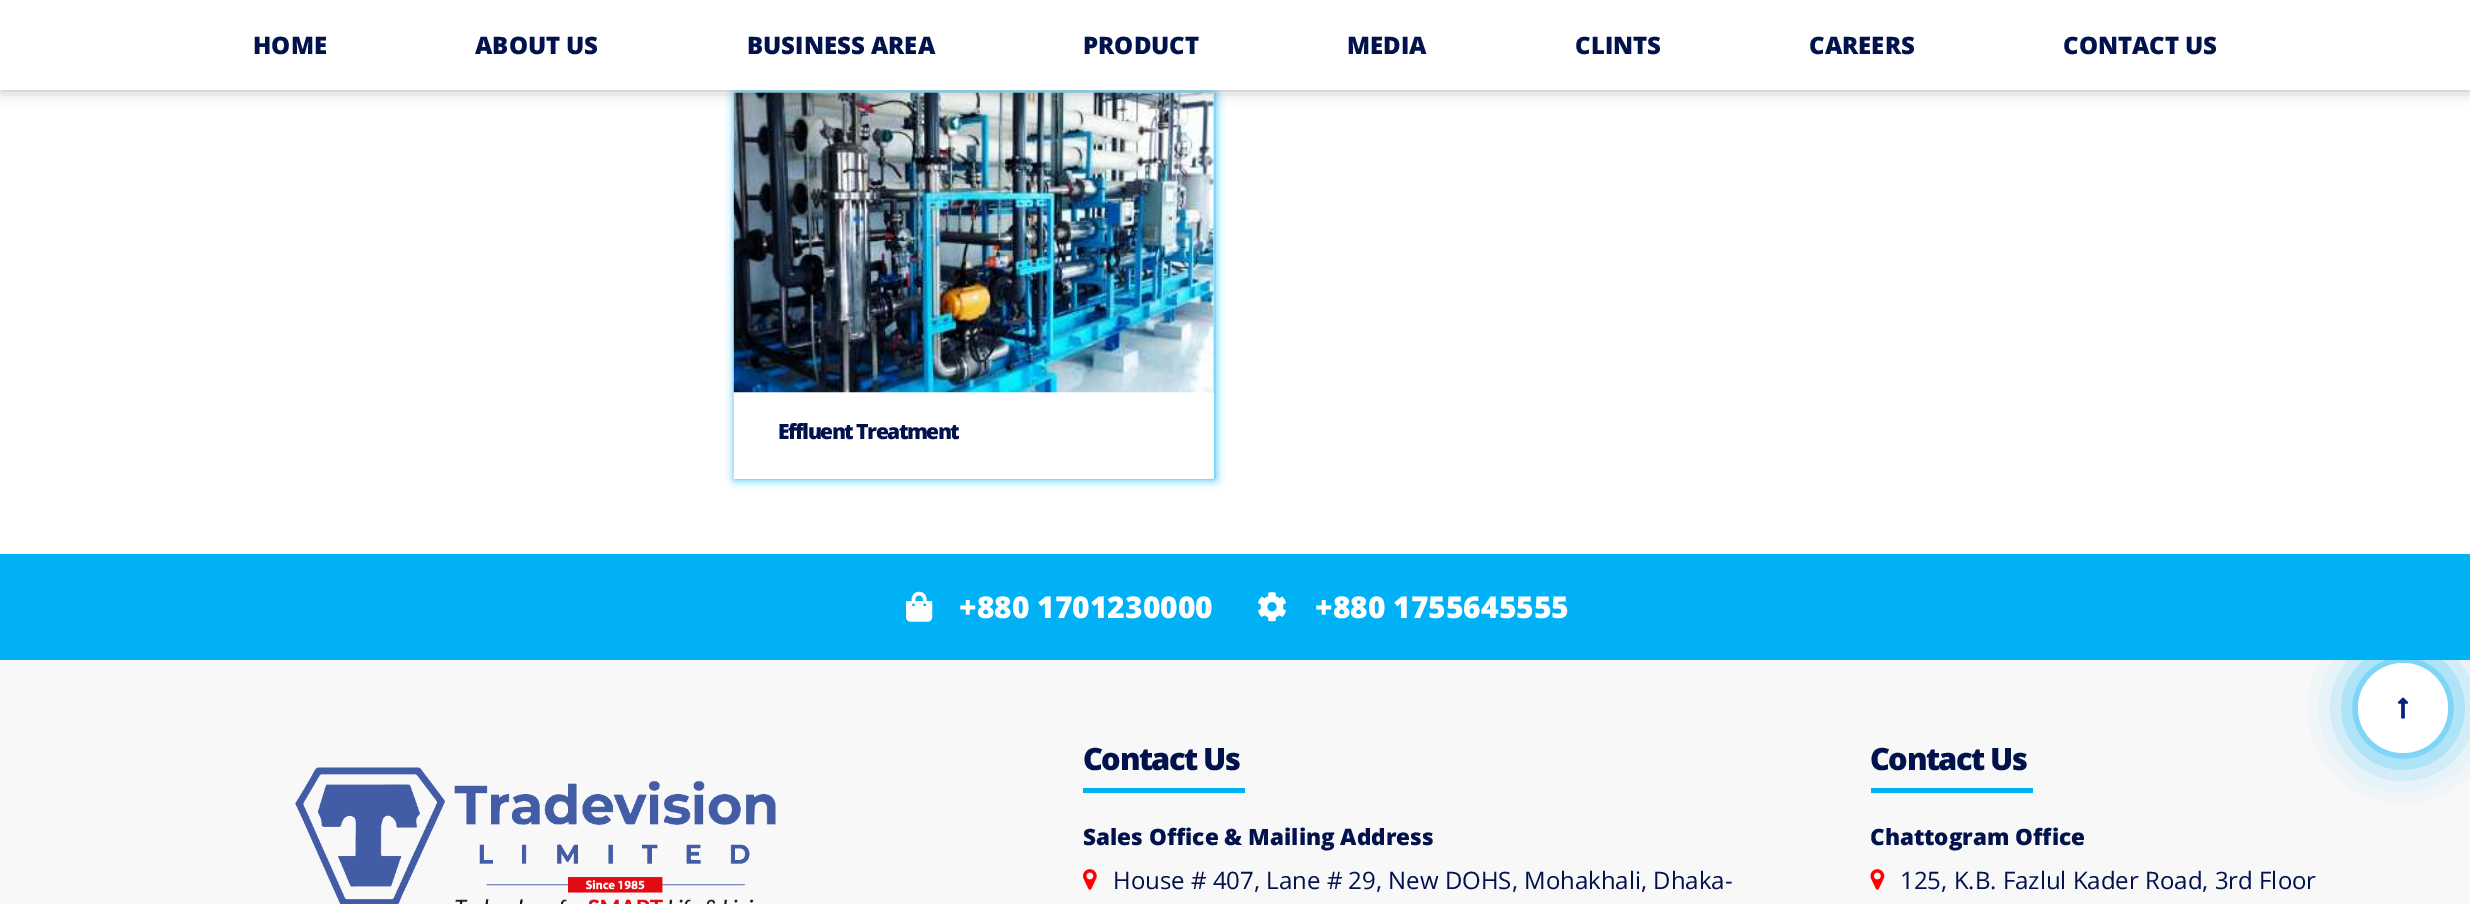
%!PS
<< /PageSize [2470 904] /PageUsesTransparency true >> setpagedevice
/m/moveto load def
/l/rlineto load def
/z/closepath load def
/f/fill load def
/q/gsave load def
/Q_/grestore load def
/C { dup -16 bitshift 255 div exch dup -8 bitshift 255 and 255 div exch 255 and 255 div setrgbcolor } def
/F { [ exch dup neg 0 0 3 -1 roll 0 0 ] selectfont } def
/T { moveto show } def
/R { rectfill } def
/A { dup .setfillconstantalpha .setstrokeconstantalpha } def
/O { newpath 0 360 arc closepath } def
/Q { 5 dict begin { /r /h /w /y /x } { exch def } forall
  x r add y moveto x w add y 2 copy h add r arct x w add y h add x 1 index r arct
  x y h add x y r arct x y 2 copy exch w add exch r arct closepath end } def
/S { 12 dict begin { /a /b /q /h /w /y /x } { exch def } forall gsave /was 0 def
  9 -2 -9 { dup b mul 4 div /e exch def 1 sub .425 mul 2.718 exch exp 1 add a .99 .min exch div /now exch def
    1 1 now sub 1 was sub div sub A /was now def
    w h .min e 2 mul add 0 gt { x e sub y e sub w e 2 mul add h e 2 mul add
      q e add b .6 mul add w h .min 2 div e add .min 0 .max Q fill } if } for grestore end } def
/I { 5 dict begin { /h /w /y /x /name } { exch def } forall
  gsave x y translate w h scale
  w h 8 [w 0 0 h 0 0] name (r) file false 3 colorimage grestore end } def
0 .pushpdf14devicefilter
0 904 translate 1 -1 scale
4 setmiterlimit
16#FFFFFF C
0 0 2470 904 R
q
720 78 m 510 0 l 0 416 l -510 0 l z 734 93 m 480 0 l 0 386 l -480 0 l z eoclip newpath
16#00B1F5 C
735 93 480 386 0 4.5 1 S
Q_
(1.rgb) 733 92 481 301 I
16#000000 C
0 0 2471 90 0 7.5 .3 S
16#FFFFFF C
0 0 2470 90 R
/OpenSans-ExtraBold 24 F
16#02124D C
(HOME) 253 54 T
(ABOUT US) 475 54 T
(BUSINESS AREA) 747 54 T
(PRODUCT) 1083 54 T
(MEDIA) 1347 54 T
(CLINTS) 1575 54 T
(CAREERS) 1809 54 T
(CONTACT US) 2063 54 T
/OpenSans-ExtraBold 21 F
778 439 m -1.5 0 (Effluent Treatment) ashow
16#00B1F5 C
0 554 2470 106 R
(2.rgb) 906 591 27 31 I
/OpenSans-ExtraBold 30 F
16#FFFFFF C
(+880 1701230000) 959 618 T
(3.rgb) 1258 592 28 30 I
(+880 1755645555) 1315 618 T
16#F8F8F8 C
0 660 2470 244 R
(4.rgb) 295 767 481 137 I
/OpenSans-ExtraBold 30.75 F
16#02124D C
1083 770 m -1.5 0 (Contact Us) ashow
16#00B1F5 C
1083 788 162 5 R
/OpenSans-ExtraBold 22.5 F
16#02124D C
(Sales Office & Mailing Address) 1083 845 T
(5.rgb) 1083 869 14 21 I
/OpenSans-Regular 24 F
(House # 407, Lane # 29, New DOHS, Mohakhali, Dhaka-) 1113 889 T
/OpenSans-ExtraBold 30.75 F
1870 770 m -1.5 0 (Contact Us) ashow
16#00B1F5 C
1871 788 162 5 R
/OpenSans-ExtraBold 22.5 F
16#02124D C
(Chattogram Office) 1870 845 T
(6.rgb) 1870 869 15 21 I
/OpenSans-Regular 24 F
(125, K.B. Fazlul Kader Road, 3rd Floor) 1900 889 T
16#00B1F5 C
2358 663 90 90 45 22.5 1 S
16#FFFFFF C
2403 708 45 O f
(7.rgb) 2397 697 12 22 I
.poppdf14devicefilter showpage
